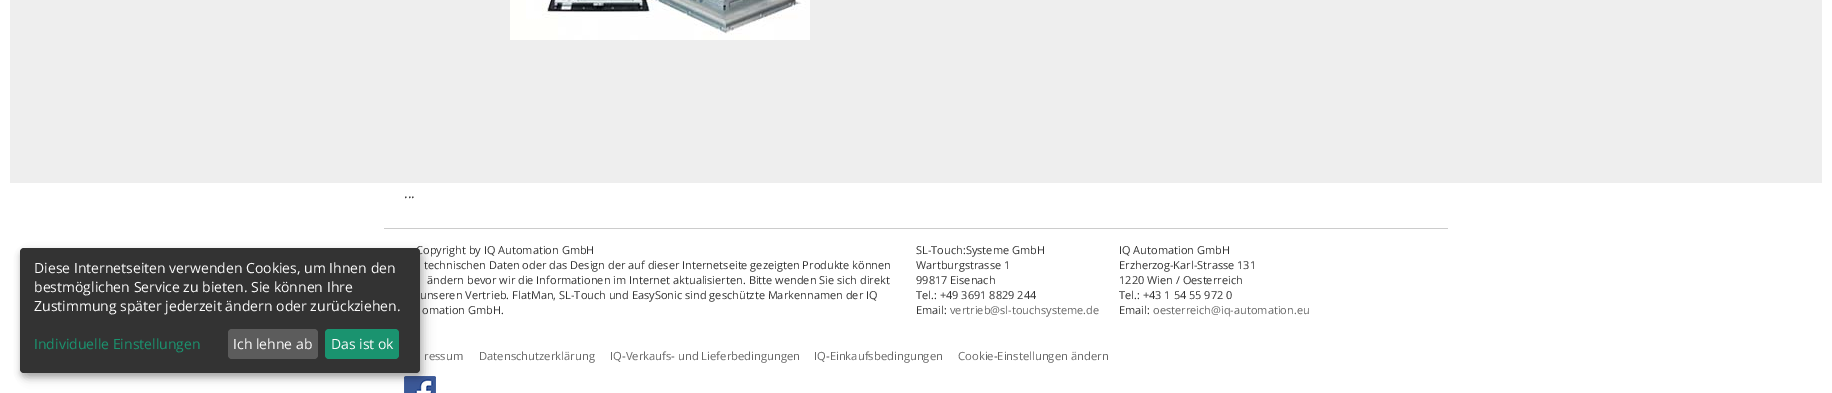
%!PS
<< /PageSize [1832 393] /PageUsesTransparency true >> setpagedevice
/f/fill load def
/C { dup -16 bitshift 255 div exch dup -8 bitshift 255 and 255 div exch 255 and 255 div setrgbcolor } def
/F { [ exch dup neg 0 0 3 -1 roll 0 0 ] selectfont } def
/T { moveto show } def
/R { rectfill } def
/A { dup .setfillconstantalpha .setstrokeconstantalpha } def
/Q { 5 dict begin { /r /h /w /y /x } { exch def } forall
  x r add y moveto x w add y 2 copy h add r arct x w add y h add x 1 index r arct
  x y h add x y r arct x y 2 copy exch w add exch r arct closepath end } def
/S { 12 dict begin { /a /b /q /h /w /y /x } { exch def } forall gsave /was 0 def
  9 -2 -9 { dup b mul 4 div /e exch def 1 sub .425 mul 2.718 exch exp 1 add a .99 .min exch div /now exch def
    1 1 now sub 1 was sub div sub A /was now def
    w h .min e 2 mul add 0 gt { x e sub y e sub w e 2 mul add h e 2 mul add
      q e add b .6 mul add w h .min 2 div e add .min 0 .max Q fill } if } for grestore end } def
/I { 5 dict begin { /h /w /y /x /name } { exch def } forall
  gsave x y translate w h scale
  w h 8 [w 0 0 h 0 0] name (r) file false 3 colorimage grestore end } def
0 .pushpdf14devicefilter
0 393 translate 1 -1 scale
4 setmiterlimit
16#FFFFFF C
0 0 1832 393 R
(2.rgb) 404 376 32 17 I
16#000000 C
25 253 400 125 4 5 .19 S
20 252 400 125 4 3 .2 S
16#333333 C
20 248 400 125 4 Q f
/OpenSans-Regular 14 F
16#FAFAFA C
(Diese Internetseiten verwenden Cookies, um Ihnen den) 34 273 T
(bestmöglichen Service zu bieten. Sie können Ihre) 34 292 T
(Zustimmung später jederzeit ändern oder zurückziehen.) 34 311 T
16#1A936F C
(Individuelle Einstellungen) 34 349 T
16#5C5C5C C
228 329 90 30 4 Q f
16#FAFAFA C
(Ich lehne ab) 233 349 T
16#1A936F C
325 329 74 30 4 Q f
16#FAFAFA C
(Das ist ok) 331 349 T
16#EEEEEE C
10 0 1812 183 R
(1.rgb) 510 0 300 40 I
16#333333 C
(...) 404 198 T
16#CCCCCC C
384 228 1064 1 R
/OpenSans-Regular 11 F
16#333333 C
(Copyright by IQ Automation GmbH) 416 254 T
(technischen Daten oder das Design der auf dieser Internetseite gezeigten Produkte können) 424 269 T
(ändern bevor wir die Informationen im Internet aktualisierten. Bitte wenden Sie sich direkt) 427 284 T
(unseren Vertrieb. FlatMan, SL-Touch und EasySonic sind geschützte Markennamen der IQ) 420 299 T
(omation GmbH.) 422 314 T
(SL-Touch:Systeme GmbH) 916 254 T
(Wartburgstrasse 1) 916 269 T
(99817 Eisenach) 916 284 T
(Tel.: +49 3691 8829 244) 916 299 T
(Email:) 916 314 T
16#666666 C
(vertrieb@sl-touchsysteme.de) 950 314 T
16#333333 C
(IQ Automation GmbH) 1119 254 T
(Erzherzog-Karl-Strasse 131) 1119 269 T
(1220 Wien / Oesterreich) 1119 284 T
(Tel.: +43 1 54 55 972 0) 1119 299 T
(Email:) 1119 314 T
16#666666 C
(oesterreich@iq-automation.eu) 1153 314 T
/OpenSans-Regular 11.25 F
(ressum) 424 360 T
(Datenschutzerklärung) 479 360 T
(IQ-Verkaufs- und Lieferbedingungen) 610 360 T
(IQ-Einkaufsbedingungen) 814 360 T
(Cookie-Einstellungen ändern) 958 360 T
.poppdf14devicefilter showpage
